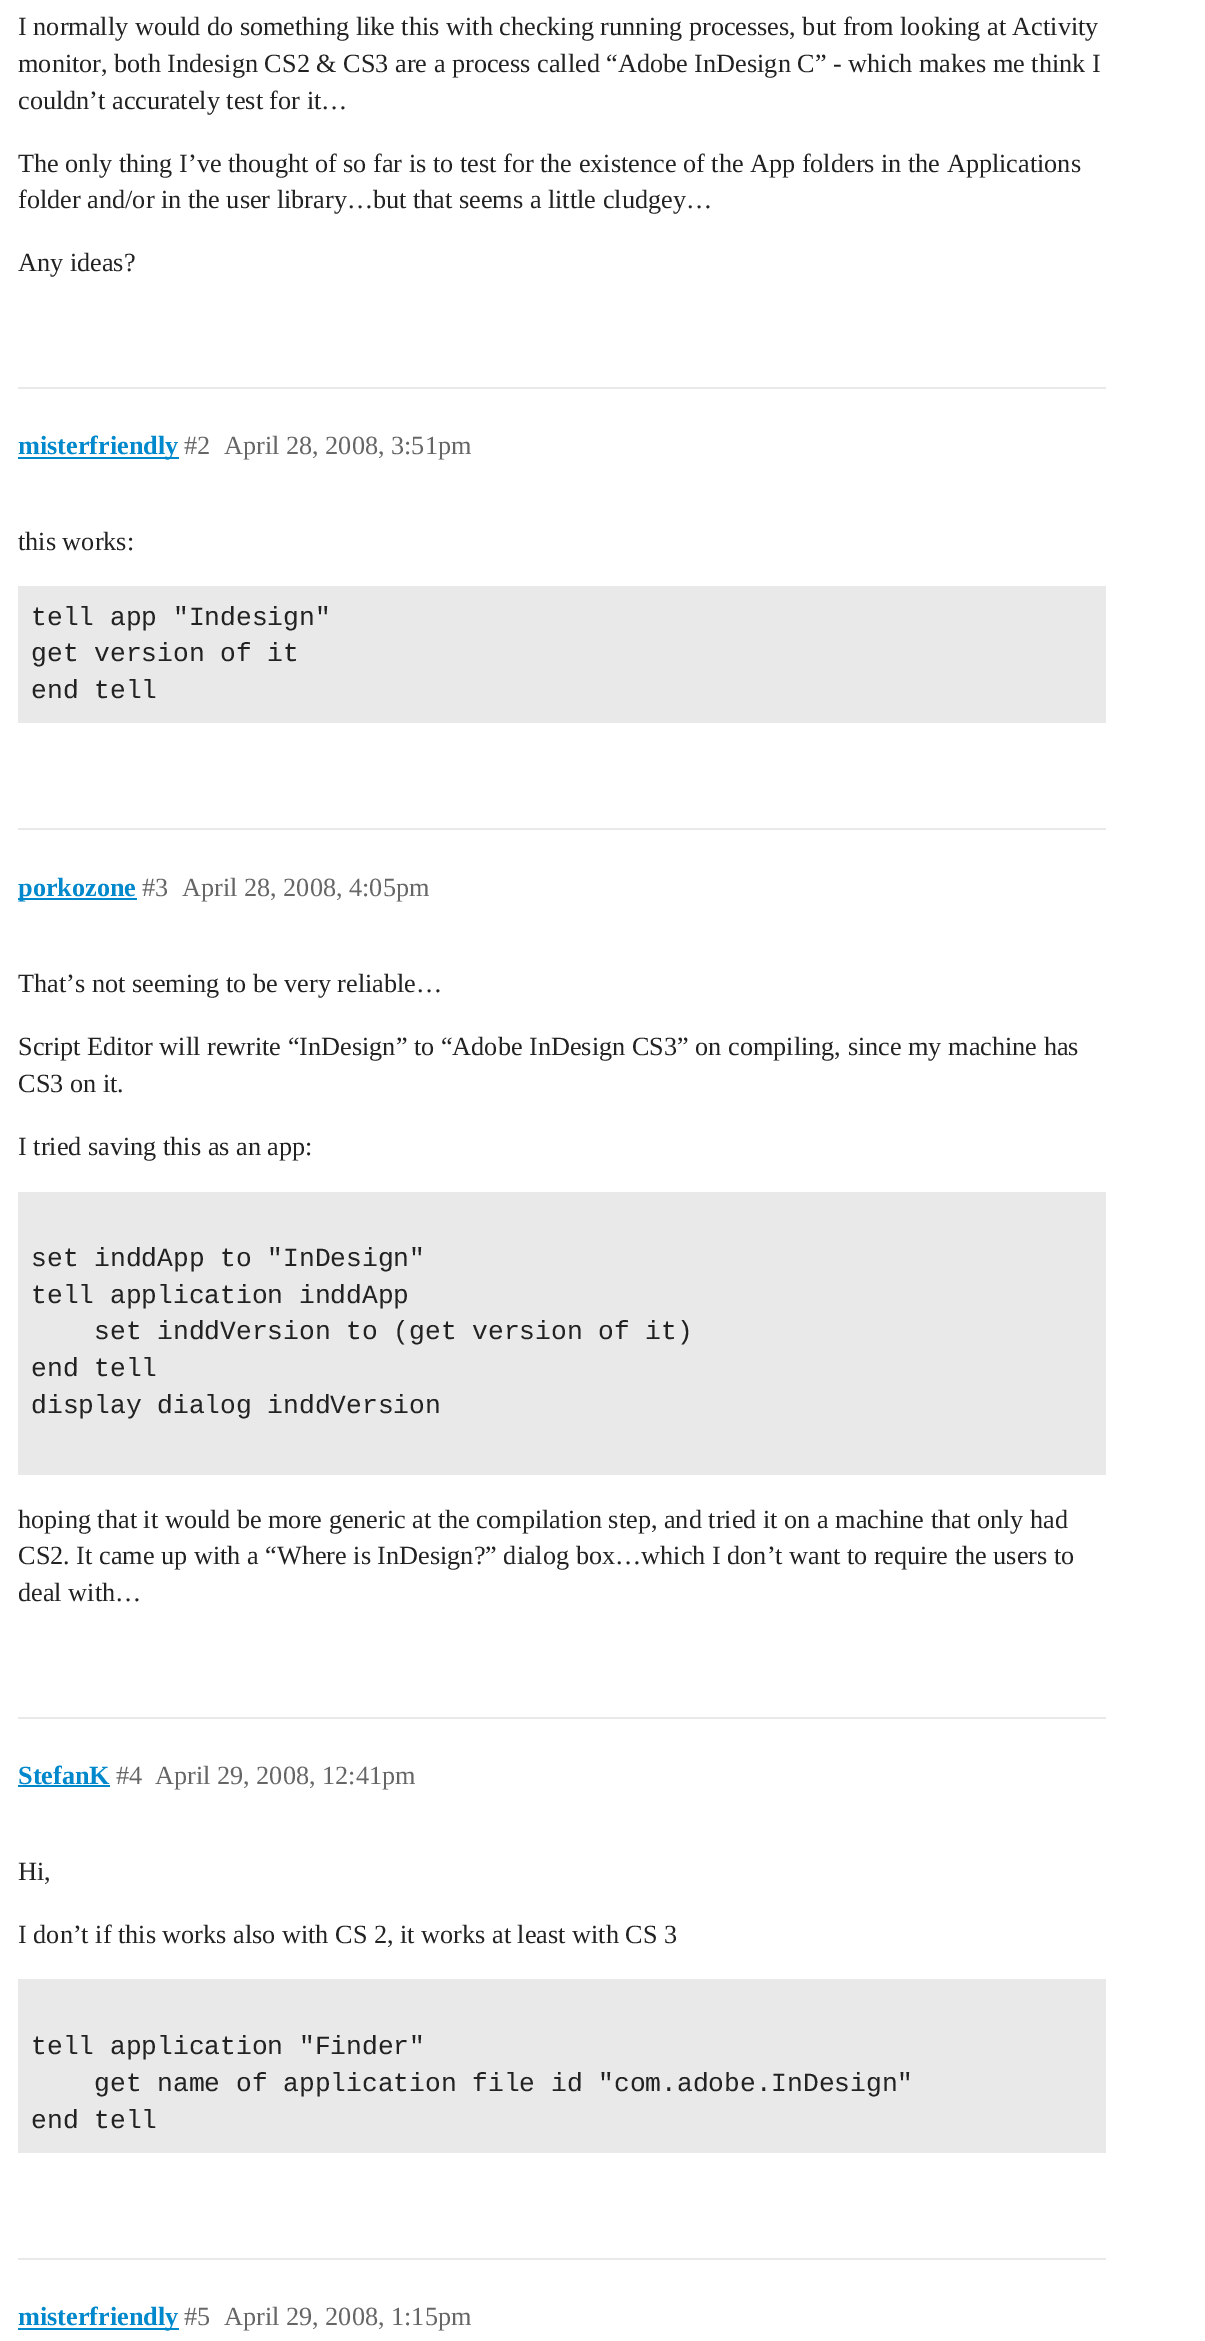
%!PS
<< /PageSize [1205 2341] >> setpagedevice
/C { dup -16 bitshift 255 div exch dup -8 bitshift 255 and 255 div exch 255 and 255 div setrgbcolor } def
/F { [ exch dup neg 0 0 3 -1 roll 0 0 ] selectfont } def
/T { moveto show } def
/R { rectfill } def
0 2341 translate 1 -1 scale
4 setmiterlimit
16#FFFFFF C
0 0 1205 2341 R
/LiberationSerif-Regular 26.25 F
16#222222 C
(I normally would do something like this with checking running processes, but from looking at Activity) 18 35 T
(monitor, both Indesign CS2 & CS3 are a process called “Adobe InDesign C” - which makes me think I) 18 72 T
(couldn’t accurately test for it…) 18 109 T
(The only thing I’ve thought of so far is to test for the existence of the App folders in the Applications) 18 172 T
(folder and/or in the user library…but that seems a little cludgey…) 18 208 T
(Any ideas?) 18 271 T
16#E9E9E9 C
18 387 1088 2 R
16#0088CC C
18 457 161 2 R
/LiberationSerif-Bold 26.25 F
(misterfriendly) 18 454 T
/LiberationSerif-Regular 26.25 F
16#666666 C
(#2) 184 454 T
(April 28, 2008, 3:51pm) 224 454 T
16#222222 C
(this works:) 18 550 T
16#E9E9E9 C
18 586 1088 137 R
/LiberationMono-Regular 26.25 F
16#222222 C
(tell app "Indesign") 31 625 T
(get version of it) 31 661 T
(end tell) 31 698 T
16#E9E9E9 C
18 828 1088 2 R
16#0088CC C
18 898 119 2 R
/LiberationSerif-Bold 26.25 F
(porkozone) 18 896 T
/LiberationSerif-Regular 26.25 F
16#666666 C
(#3) 142 896 T
(April 28, 2008, 4:05pm) 182 896 T
16#222222 C
(That’s not seeming to be very reliable…) 18 992 T
(Script Editor will rewrite “InDesign” to “Adobe InDesign CS3” on compiling, since my machine has) 18 1055 T
(CS3 on it.) 18 1092 T
(I tried saving this as an app:) 18 1155 T
16#E9E9E9 C
18 1192 1088 283 R
/LiberationMono-Regular 26.25 F
16#222222 C
(set inddApp to "InDesign") 31 1266 T
(tell application inddApp) 31 1303 T
(set inddVersion to \(get version of it\)) 94 1339 T
(end tell) 31 1376 T
(display dialog inddVersion) 31 1413 T
/LiberationSerif-Regular 26.25 F
(hoping that it would be more generic at the compilation step, and tried it on a machine that only had) 18 1528 T
(CS2. It came up with a “Where is InDesign?” dialog box…which I don’t want to require the users to) 18 1564 T
(deal with…) 18 1601 T
16#E9E9E9 C
18 1717 1088 2 R
/LiberationSerif-Bold 26.25 F
16#0088CC C
(StefanK) 18 1784 T
18 1785 92 2 R
/LiberationSerif-Regular 26.25 F
16#666666 C
(#4) 116 1784 T
(April 29, 2008, 12:41pm) 155 1784 T
16#222222 C
(Hi,) 18 1880 T
(I don’t if this works also with CS 2, it works at least with CS 3) 18 1943 T
16#E9E9E9 C
18 1979 1088 174 R
/LiberationMono-Regular 26.25 F
16#222222 C
(tell application "Finder") 31 2054 T
(get name of application file id "com.adobe.InDesign") 94 2091 T
(end tell) 31 2128 T
16#E9E9E9 C
18 2258 1088 2 R
16#0088CC C
18 2328 161 2 R
/LiberationSerif-Bold 26.25 F
(misterfriendly) 18 2325 T
/LiberationSerif-Regular 26.25 F
16#666666 C
(#5) 184 2325 T
(April 29, 2008, 1:15pm) 224 2325 T
showpage
